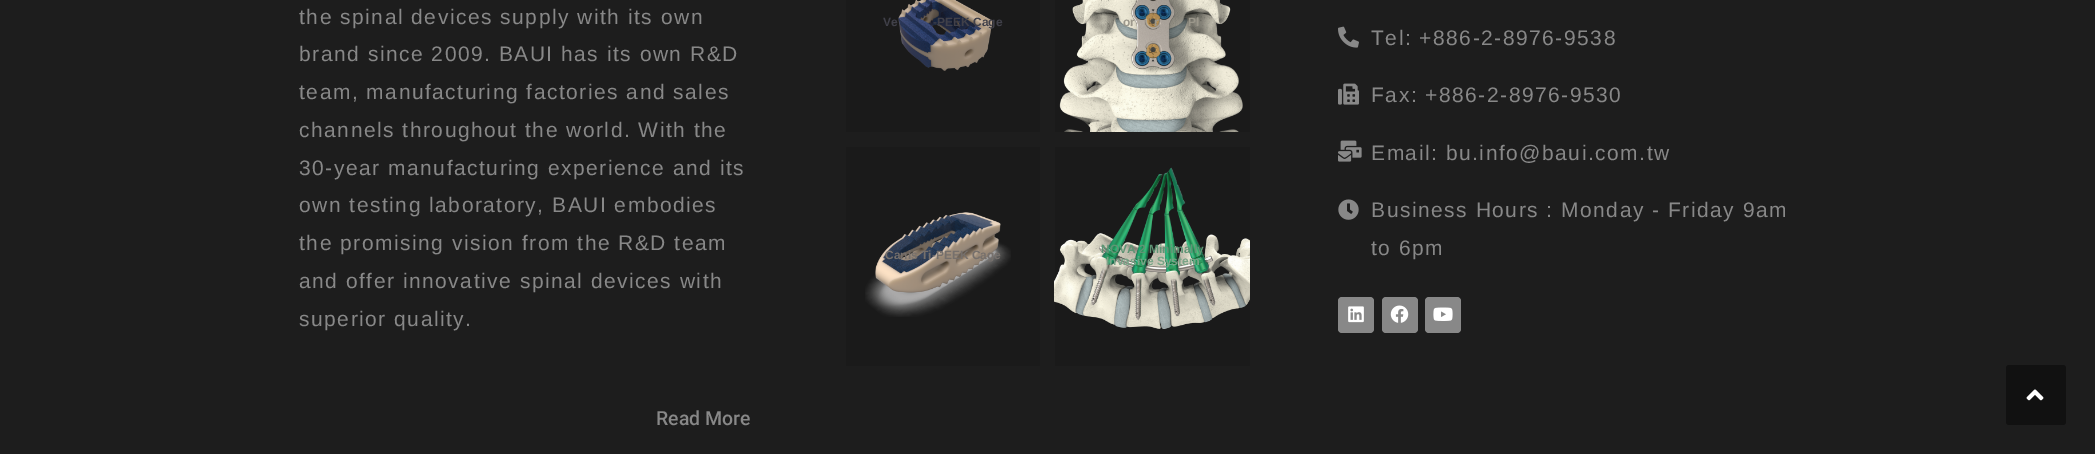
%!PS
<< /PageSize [2095 454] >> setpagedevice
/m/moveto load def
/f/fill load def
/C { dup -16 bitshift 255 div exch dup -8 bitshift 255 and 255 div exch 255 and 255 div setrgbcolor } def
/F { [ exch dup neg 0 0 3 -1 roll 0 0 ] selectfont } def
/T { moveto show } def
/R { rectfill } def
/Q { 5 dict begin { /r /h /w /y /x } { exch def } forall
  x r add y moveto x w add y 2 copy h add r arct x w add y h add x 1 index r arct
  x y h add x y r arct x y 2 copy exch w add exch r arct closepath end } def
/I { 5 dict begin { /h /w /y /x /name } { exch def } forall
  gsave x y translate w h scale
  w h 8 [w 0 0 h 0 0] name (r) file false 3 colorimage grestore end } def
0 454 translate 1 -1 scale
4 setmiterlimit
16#1D1D1D C
0 0 2095 454 R
/LiberationSans-Regular 21 F
16#888888 C
299 24 m 1.5 0 (the spinal devices supply with its own) ashow
299 61 m 1.5 0 (brand since 2009. BAUI has its own R&D) ashow
299 99 m 1.5 0 (team, manufacturing factories and sales) ashow
299 137 m 1.5 0 (channels throughout the world. With the) ashow
299 175 m 1.5 0 (30-year manufacturing experience and its) ashow
299 212 m 1.5 0 (own testing laboratory, BAUI embodies) ashow
299 250 m 1.5 0 (the promising vision from the R&D team) ashow
299 288 m 1.5 0 (and offer innovative spinal devices with) ashow
299 326 m 1.5 0 (superior quality.) ashow
/Roboto-Medium 19.5 F
(Read More) 656 425 T
16#1A1A1A C
846 0 194 132 R
(1.rgb) 898 0 95 71 I
/LiberationSans-Bold 12 F
16#404049 C
(Ve) 883 26 T
(-PEEK Cage) 933 26 T
16#1A1A1A C
1055 0 195 132 R
(2.rgb) 1059 0 184 132 I
16#9B978B C
(or) 1123 26 T
(r) 1154 26 T
(Pl) 1188 26 T
16#1A1A1A C
846 147 194 219 R
(3.rgb) 865 212 146 105 I
16#76706C C
(Canis Ti-PEEK Cage) 885 259 T
16#1A1A1A C
1055 147 195 219 R
(4.rgb) 1054 167 196 162 I
16#5F9575 C
(NOVA 2 Minimally) 1101 253 T
16#79A487 C
(Invasive System) 1106 265 T
(5.rgb) 1338 26 21 22 I
/LiberationSans-Regular 21 F
16#888888 C
1371 45 m 1.5 0 (Tel: +886-2-8976-9538) ashow
(6.rgb) 1338 83 21 22 I
1371 102 m 1.5 0 (Fax: +886-2-8976-9530) ashow
(7.rgb) 1338 140 24 22 I
1371 160 m 1.5 0 (Email: bu.info@baui.com.tw) ashow
(8.rgb) 1338 199 21 21 I
1371 217 m 1.5 0 (Business Hours : Monday - Friday 9am) ashow
1371 255 m 1.5 0 (to 6pm) ashow
1338 297 36 36 4 Q f
(9.rgb) 1348 306 16 17 I
1382 297 36 36 4 Q f
(10.rgb) 1390 305 19 18 I
1425 297 36 36 4 Q f
(11.rgb) 1433 307 20 14 I
16#111111 C
2006 365 60 60 3 Q f
(12.rgb) 2026 389 18 12 I
showpage
